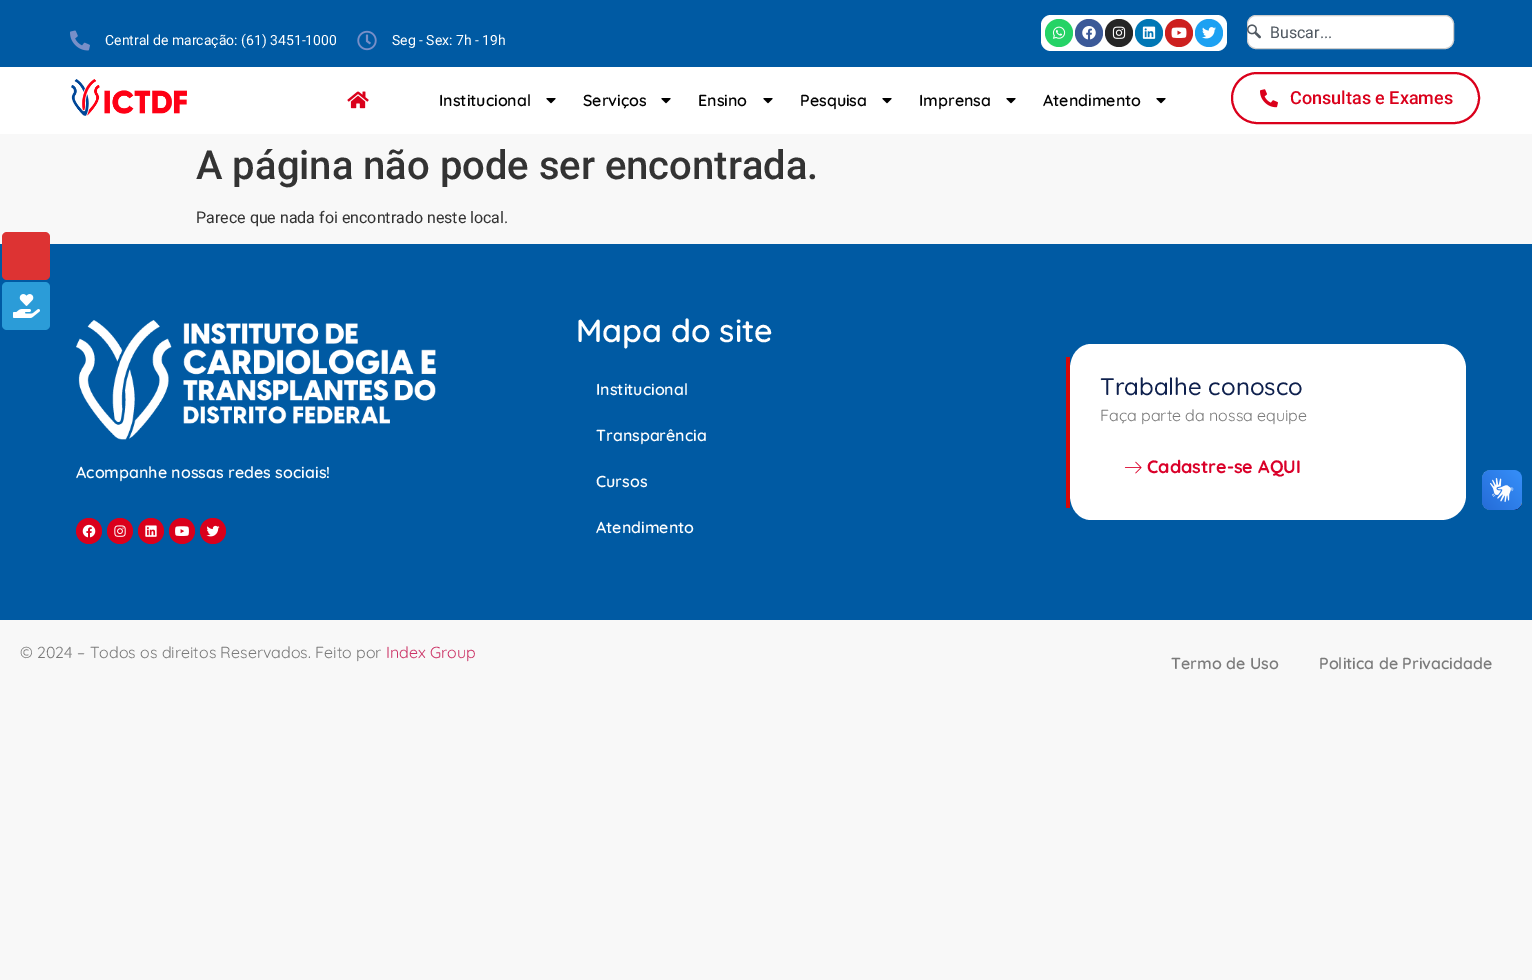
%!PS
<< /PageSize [1532 980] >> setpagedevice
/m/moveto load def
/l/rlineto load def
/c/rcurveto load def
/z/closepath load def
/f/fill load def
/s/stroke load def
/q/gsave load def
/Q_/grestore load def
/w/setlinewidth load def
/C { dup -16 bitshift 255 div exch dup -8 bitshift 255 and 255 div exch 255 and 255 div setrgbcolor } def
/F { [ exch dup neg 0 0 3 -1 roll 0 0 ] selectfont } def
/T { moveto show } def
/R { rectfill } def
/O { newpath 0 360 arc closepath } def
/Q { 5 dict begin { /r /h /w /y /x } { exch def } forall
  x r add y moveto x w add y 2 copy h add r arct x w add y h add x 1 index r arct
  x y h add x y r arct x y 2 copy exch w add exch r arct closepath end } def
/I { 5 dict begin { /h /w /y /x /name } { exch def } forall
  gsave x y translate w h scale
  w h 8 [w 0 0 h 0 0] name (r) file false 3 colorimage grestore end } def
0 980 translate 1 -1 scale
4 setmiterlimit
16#F8F8F8 C
0 0 1532 980 R
16#005AA3 C
0 0 1532 67 R
(1.rgb) 70 30 20 21 I
/Roboto-Regular 14 F
16#FFFFFF C
(Central de marcação: \(61\) 3451-1000) 105 45 T
(2.rgb) 357 30 20 21 I
(Seg - Sex: 7h - 19h) 392 45 T
1041 15 186 36 10 Q f
16#25D366 C
1059 33 14 O f
(3.rgb) 1052 26 14 13 I
16#3B5998 C
1089 33 14 O f
(4.rgb) 1082 26 14 14 I
16#262626 C
1119 33 14 O f
(5.rgb) 1112 26 14 13 I
16#0077B5 C
1149 33 14 O f
(6.rgb) 1142 26 14 13 I
16#CD201F C
1179 33 14 O f
(7.rgb) 1171 27 16 11 I
16#1DA1F2 C
1209 33 14 O f
(8.rgb) 1202 27 14 12 I
16#FFFFFF C
1247.5 15.5 206 33 8.5 Q q f Q_
16#CDCDCD C
s
(9.rgb) 1247 24 14 15 I
/Roboto-Regular 16 F
16#515962 C
(Buscar...) 1270 38 T
16#FFFFFF C
0 67 1532 67 R
(10.rgb) 71 79 116 37 I
(11.rgb) 347 91 22 18 I
/Quicksand-SemiBold 16 F
16#000000 C
(Institucional) 439 106 T
(12.rgb) 546 98 10 6 I
(Serviços) 583 106 T
(12.rgb) 661 98 10 6 I
(Ensino) 698 106 T
(12.rgb) 763 98 10 6 I
(Pesquisa) 800 106 T
(12.rgb) 882 98 10 6 I
(Imprensa) 919 106 T
(12.rgb) 1006 98 10 6 I
(Atendimento) 1043 106 T
(12.rgb) 1156 98 10 6 I
16#DA001B C
2 w
1232 73 247 50 25 Q s
(13.rgb) 1260 89 18 19 I
/Roboto-Medium 18 F
(Consultas e Exames) 1290 104 T
/Roboto-Medium 40 F
16#333333 C
(A página não pode ser encontrada.) 196 179 T
/Roboto-Regular 16 F
(Parece que nada foi encontrado neste local.) 196 223 T
16#005AA3 C
0 244 1532 376 R
16#DD3333 C
2 232 48 48 5 Q f
16#2B9CD8 C
2 282 48 48 5 Q f
(14.rgb) 13 294 27 24 I
(15.rgb) 76 320 360 120 I
/Quicksand-SemiBold 16 F
16#FFFFFF C
(Acompanhe nossas redes sociais!) 76 478 T
16#DA001B C
89 531 13 O f
(16.rgb) 82 524 14 14 I
120 531 13 O f
(17.rgb) 114 525 12 12 I
151 531 13 O f
(18.rgb) 145 525 12 12 I
182 531 13 O f
(19.rgb) 175 526 14 10 I
213 531 13 O f
(20.rgb) 206 525 14 12 I
/Quicksand-SemiBold 32 F
16#FFFFFF C
(Mapa do site) 576 342 T
/Quicksand-SemiBold 16 F
(Institucional) 596 395 T
(Transparência) 596 441 T
(Cursos) 596 487 T
(Atendimento) 596 533 T
1091 344 m 350 0 l 14 0 25 11 25 25 c 0 126 l 0 14 -11 25 -25 25 c -350 0 l -12 0 -21 -11 -21 -25 c 0 -126 l 0 -14 9 -25 21 -25 c z f
16#D80707 C
1066 357 4 151 R
/Quicksand-Medium 24 F
16#0E204D C
(Trabalhe conosco) 1100 395 T
/Quicksand-Regular 16 F
16#7A7A7A C
(Faça parte da nossa equipe) 1100 421 T
(21.rgb) 1124 461 18 13 I
/Quicksand-Bold 18 F
16#DA0029 C
(Cadastre-se AQUI) 1147 473 T
/Quicksand-Regular 16 F
16#7A7A7A C
(© 2024 – Todos os direitos Reservados. Feito por) 20 658 T
16#CC3366 C
(Index Group) 386 658 T
/Quicksand-SemiBold 16 F
16#7A7A7A C
(Termo de Uso) 1171 669 T
(Politica de Privacidade) 1319 669 T
(22.rgb) 1482 470 40 40 I
(23.rgb) 1482 470 40 40 I
showpage
